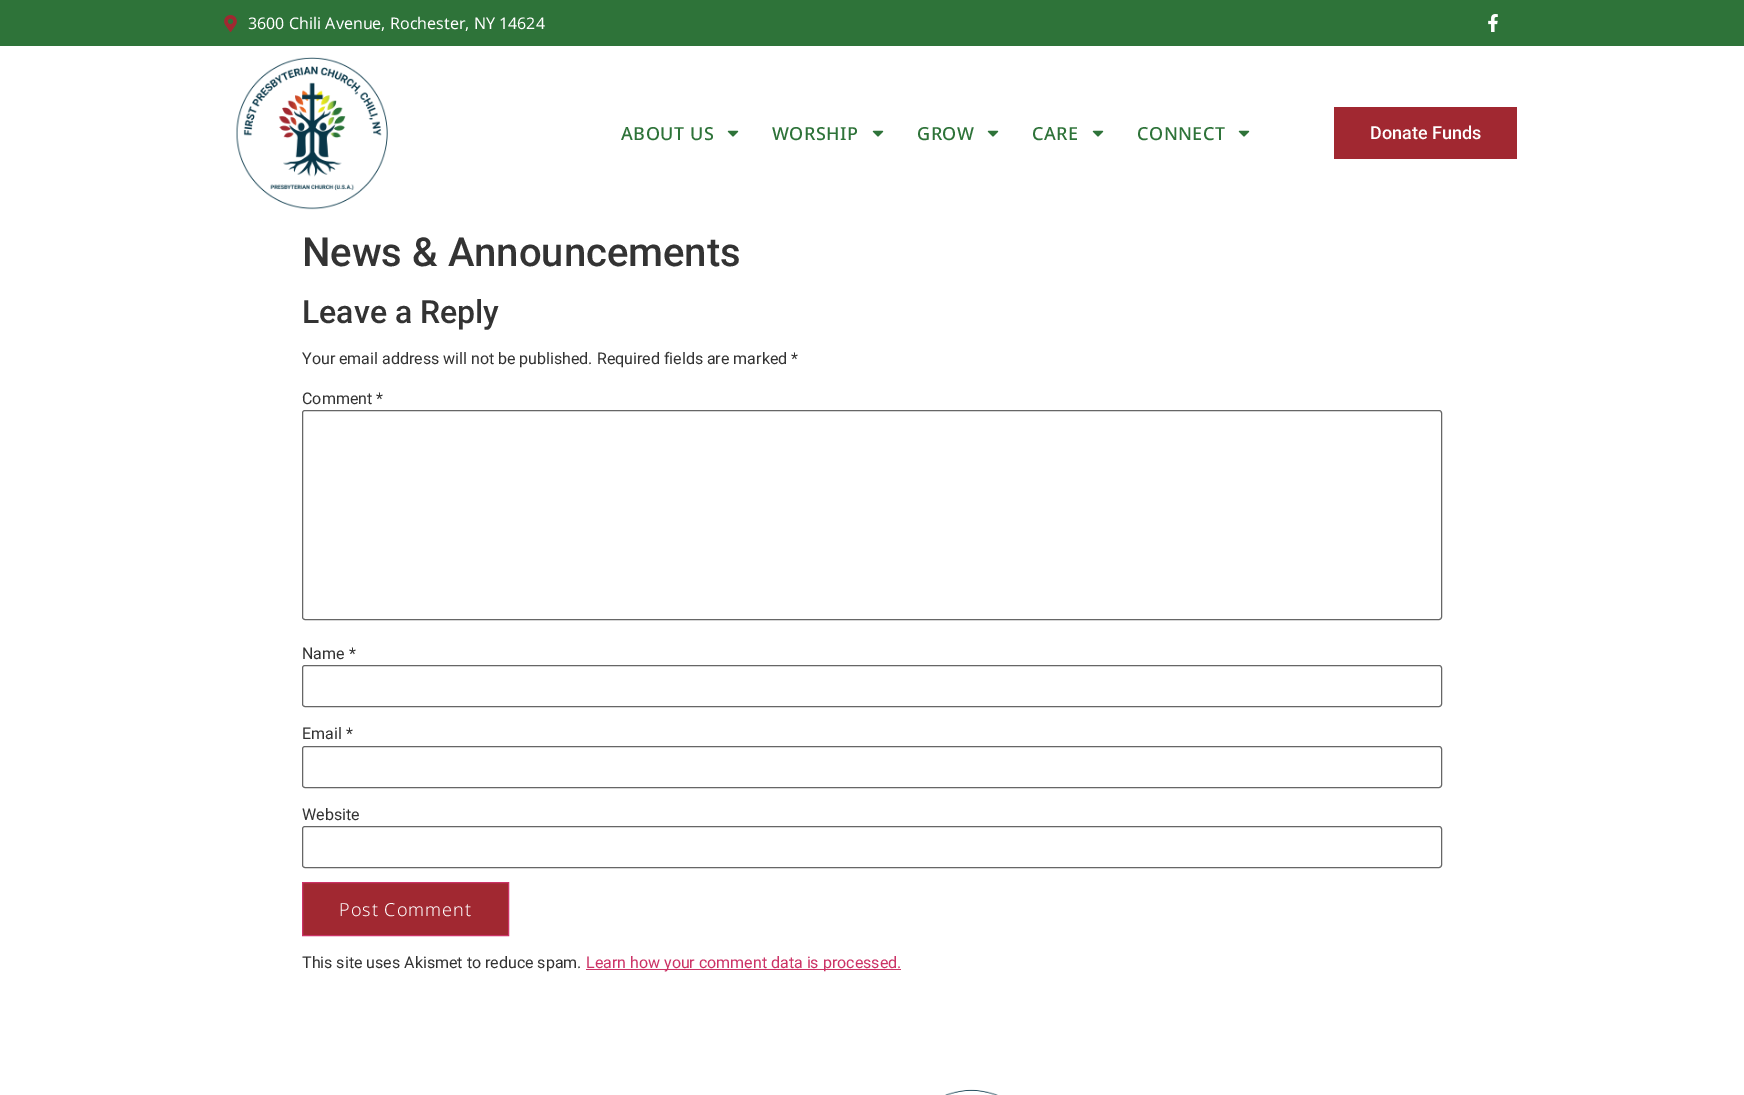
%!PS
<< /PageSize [1744 1095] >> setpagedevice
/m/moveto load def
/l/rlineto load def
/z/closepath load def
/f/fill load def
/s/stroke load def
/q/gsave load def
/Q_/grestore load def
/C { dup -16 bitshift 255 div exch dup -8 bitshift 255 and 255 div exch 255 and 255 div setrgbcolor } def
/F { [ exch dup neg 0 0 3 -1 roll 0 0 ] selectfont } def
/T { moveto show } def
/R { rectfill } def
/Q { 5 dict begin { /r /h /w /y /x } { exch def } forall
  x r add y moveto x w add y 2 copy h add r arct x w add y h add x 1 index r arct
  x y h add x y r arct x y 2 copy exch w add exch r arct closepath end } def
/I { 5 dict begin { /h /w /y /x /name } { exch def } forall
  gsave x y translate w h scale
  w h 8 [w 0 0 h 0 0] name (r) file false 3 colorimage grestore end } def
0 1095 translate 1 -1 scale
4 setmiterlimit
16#FFFFFF C
0 0 1744 1095 R
16#2E7339 C
0 0 1744 46 R
(1.rgb) 224 15 13 17 I
/NotoSans-Regular 16 F
16#FFFFFF C
(3600 Chili Avenue, Rochester, NY 14624) 248 29 T
(2.rgb) 1488 14 10 18 I
(3.rgb) 236 57 152 153 I
/NotoSans-Medium 18 F
16#2E7339 C
621 140 m .5 0 (ABOUT US) ashow
(4.rgb) 727 130 12 7 I
772 140 m .5 0 (WORSHIP) ashow
(4.rgb) 872 130 12 7 I
917 140 m .5 0 (GROW) ashow
(4.rgb) 987 130 12 7 I
1032 140 m .5 0 (CARE) ashow
(4.rgb) 1092 130 12 7 I
1137 140 m .5 0 (CONNECT) ashow
(4.rgb) 1238 130 12 7 I
16#A12831 C
1334 107 183 52 R
/Roboto-Medium 18 F
16#FFFFFF C
(Donate Funds) 1370 139 T
/Roboto-Medium 40 F
16#333333 C
(News & Announcements) 302 266 T
/Roboto-Medium 32 F
(Leave a Reply) 302 323 T
/Roboto-Regular 16 F
(Your email address will not be published. Required fields are marked *) 302 364 T
(Comment *) 302 404 T
16#666666 C
302.5 410.5 1139 209 2.5 Q s
16#333333 C
(Name *) 302 659 T
16#666666 C
302.5 665.5 1139 41 2.5 Q s
16#333333 C
(Email *) 302 739 T
16#666666 C
302.5 746.5 1139 41 2.5 Q s
16#333333 C
(Website) 302 820 T
16#666666 C
302.5 826.5 1139 41 2.5 Q s
16#A12831 C
302.5 882.5 m 206 0 l 0 53 l -206 0 l z q f Q_
16#CC3366 C
s
/NotoSans-Light 18 F
16#FFFFFF C
339 916 m 1 0 (Post Comment) ashow
/Roboto-Regular 16 F
16#333333 C
(This site uses Akismet to reduce spam.) 302 968 T
16#CC3366 C
586 969 315 1 R
(Learn how your comment data is processed.) 586 968 T
(5.rgb) 945 1089 53 6 I
showpage
